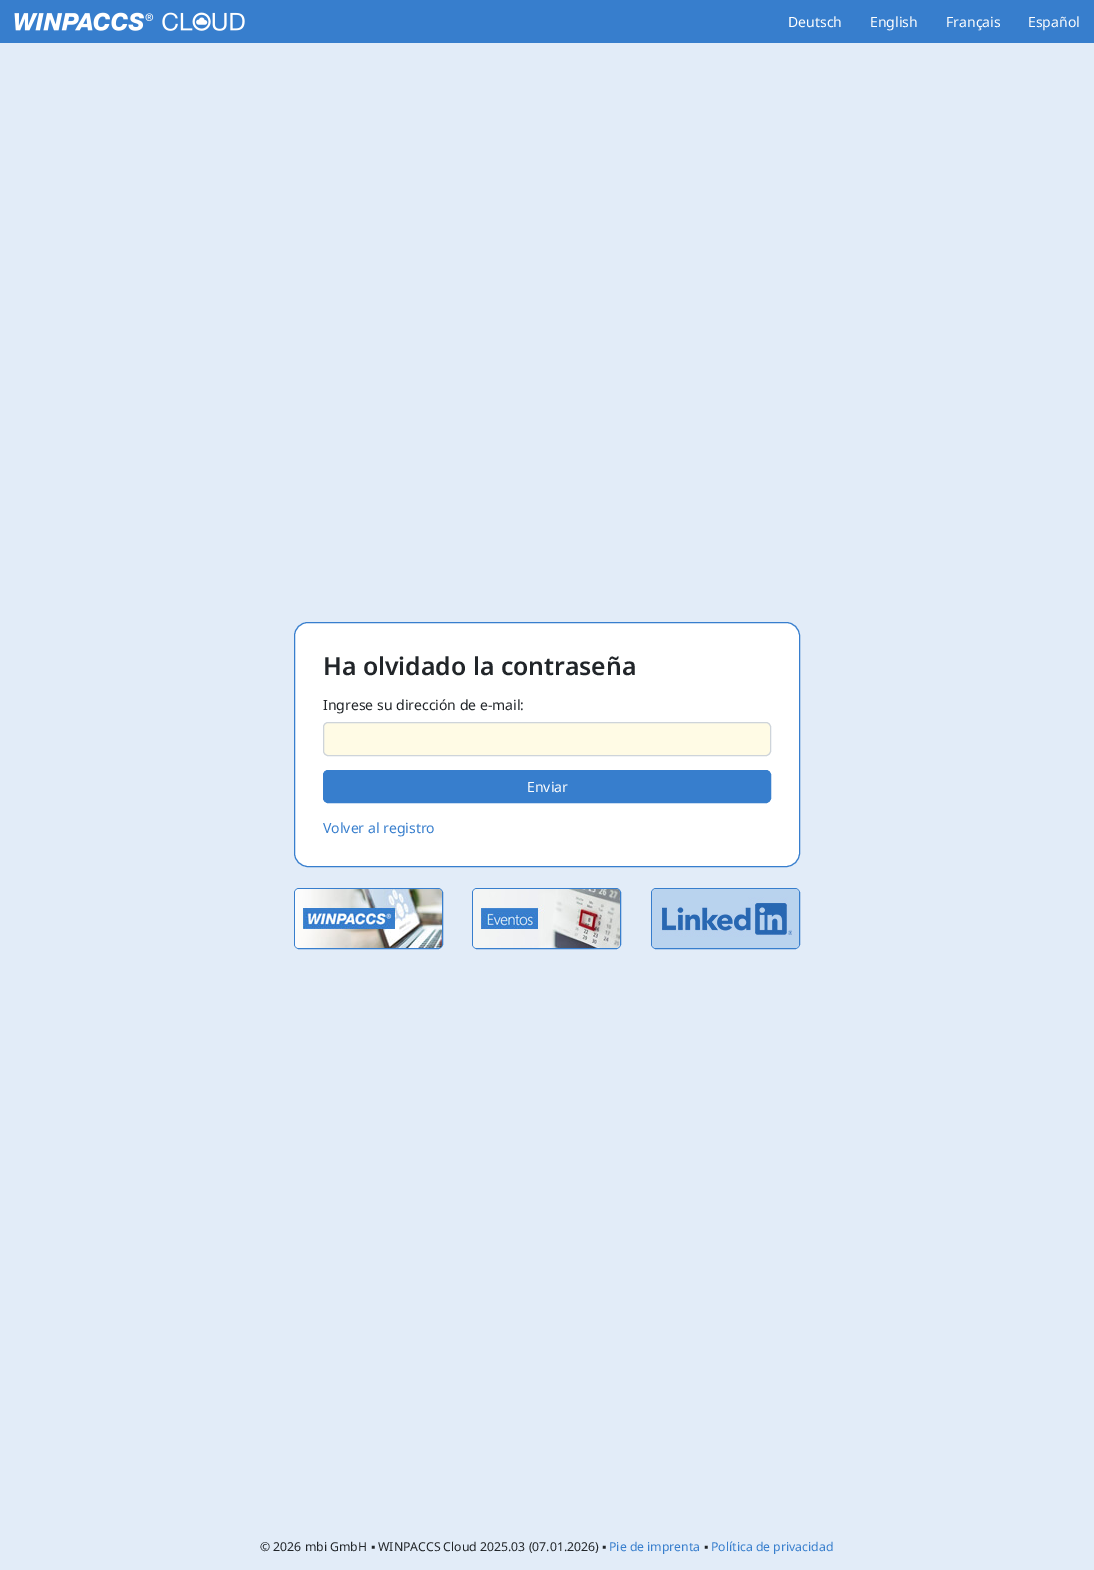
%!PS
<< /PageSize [1094 1570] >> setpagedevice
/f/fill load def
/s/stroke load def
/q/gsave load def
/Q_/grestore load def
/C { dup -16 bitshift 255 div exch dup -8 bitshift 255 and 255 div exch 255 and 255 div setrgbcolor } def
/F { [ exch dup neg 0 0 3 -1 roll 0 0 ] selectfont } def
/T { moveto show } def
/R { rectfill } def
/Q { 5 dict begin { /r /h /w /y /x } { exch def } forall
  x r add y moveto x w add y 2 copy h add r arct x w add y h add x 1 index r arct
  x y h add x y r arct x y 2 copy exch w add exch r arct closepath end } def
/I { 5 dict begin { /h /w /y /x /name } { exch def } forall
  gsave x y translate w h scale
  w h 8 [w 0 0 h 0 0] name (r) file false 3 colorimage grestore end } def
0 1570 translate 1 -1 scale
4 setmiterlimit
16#E2ECF8 C
0 0 1094 1570 R
16#377ECD C
0 0 1094 43 R
(1.rgb) 14 12 231 19 I
/NotoSans-Regular 14 F
16#FFFFFF C
(Deutsch) 788 27 T
(English) 870 27 T
(Français) 946 27 T
(Español) 1028 27 T
294.5 622.5 505 244 13.5 Q q f Q_
16#377ECE C
s
/NotoSans-SemiBold 24.75 F
16#212529 C
(Ha olvidado la contraseña) 323 675 T
/NotoSans-Regular 14 F
(Ingrese su dirección de e-mail:) 323 710 T
16#FFFBE5 C
323.5 722.5 447 33 4.5 Q q f Q_
16#CED4DA C
s
16#377ECD C
323.5 770.5 447 32 4.5 Q q f Q_
s
16#FFFFFF C
(Enviar) 527 792 T
16#377ECD C
(Volver al registro) 323 833 T
294.5 888.5 148 60 4.5 Q s
(2.rgb) 295 889 147 59 I
472.5 888.5 148 60 4.5 Q s
(3.rgb) 473 889 147 59 I
651.5 888.5 148 60 4.5 Q s
(4.rgb) 652 889 147 59 I
/NotoSans-Regular 12.25 F
16#212529 C
(© 2026 mbi GmbH) 260 1551 T
/LiberationSans-Regular 12.25 F
(▪) 371 1551 T
/NotoSans-Regular 12.25 F
(WINPACCS Cloud 2025.03 \(07.01.2026\)) 378 1551 T
/LiberationSans-Regular 12.25 F
(▪) 602 1551 T
/NotoSans-Regular 12.25 F
16#377ECD C
(Pie de imprenta) 609 1551 T
/LiberationSans-Regular 12.25 F
16#212529 C
(▪) 704 1551 T
/NotoSans-Regular 12.25 F
16#377ECD C
(Política de privacidad) 711 1551 T
showpage
